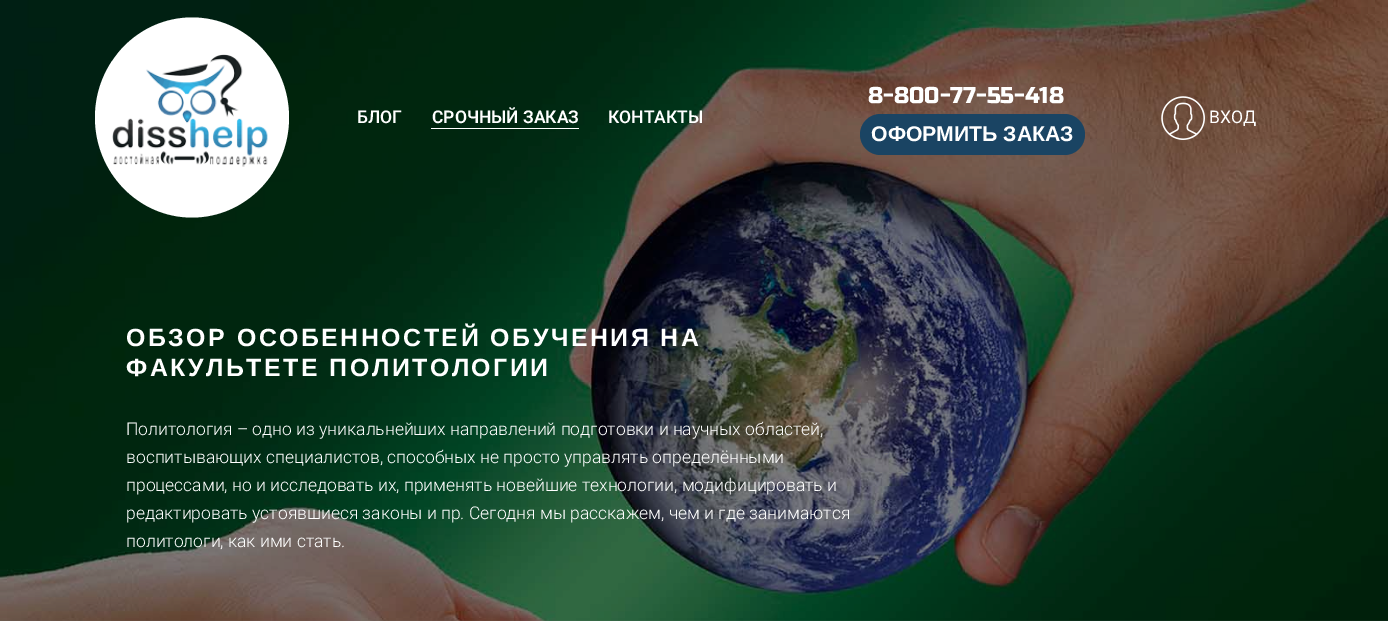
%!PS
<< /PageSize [1388 621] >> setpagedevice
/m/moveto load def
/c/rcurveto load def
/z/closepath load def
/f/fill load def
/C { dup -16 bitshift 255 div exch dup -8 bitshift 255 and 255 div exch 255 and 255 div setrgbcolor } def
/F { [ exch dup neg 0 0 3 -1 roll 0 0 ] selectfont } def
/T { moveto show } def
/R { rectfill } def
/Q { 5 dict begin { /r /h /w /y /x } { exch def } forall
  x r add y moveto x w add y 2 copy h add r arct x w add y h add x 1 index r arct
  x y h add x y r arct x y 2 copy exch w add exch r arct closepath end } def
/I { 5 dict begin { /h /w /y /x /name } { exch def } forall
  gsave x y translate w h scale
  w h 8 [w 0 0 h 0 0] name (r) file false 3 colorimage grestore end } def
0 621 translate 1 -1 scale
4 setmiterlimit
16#FFFFFF C
0 0 1388 621 R
(1.rgb) 0 0 1388 621 I
192 17.5 m 53.5 0 97 45 97 100 c 0 55 -43.5 100 -97 100 c -53.5 0 -97 -45 -97 -100 c 0 -55 43.5 -100 97 -100 c z f
(2.rgb) 112 54 156 113 I
/Roboto-Medium 17.5 F
(БЛОГ) 357 123 T
/Roboto-SemiBold 17.5 F
(СРОЧНЫЙ ЗАКАЗ) 432 123 T
431 128 148 1 R
/Roboto-Medium 17.5 F
(КОНТАКТЫ) 608 123 T
/RussoOne-Regular 22.75 F
(8-800-77-55-418) 868 103 T
16#1A4463 C
860 114 225 41 20.5 Q f
/LiberationSans-Bold 21.25 F
16#FFFFFF C
(ОФОРМИТЬ ЗАКАЗ) 871 141 T
(3.rgb) 1161 96 44 44 I
/Roboto-Regular 17.5 F
(ВХОД) 1209 123 T
/LiberationSans-Bold 24.9 F
126 346 m 2.5 0 (ОБЗОР ОСОБЕННОСТЕЙ ОБУЧЕНИЯ НА) ashow
126 376 m 2.5 0 (ФАКУЛЬТЕТЕ ПОЛИТОЛОГИИ) ashow
/Roboto-Light 17.5 F
(Политология – одно из уникальнейших направлений подготовки и научных областей,) 126 435 T
(воспитывающих специалистов, способных не просто управлять определёнными) 126 463 T
(процессами, но и исследовать их, применять новейшие технологии, модифицировать и) 126 491 T
(редактировать устоявшиеся законы и пр. Сегодня мы расскажем, чем и где занимаются) 126 519 T
(политологи, как ими стать.) 126 547 T
showpage
